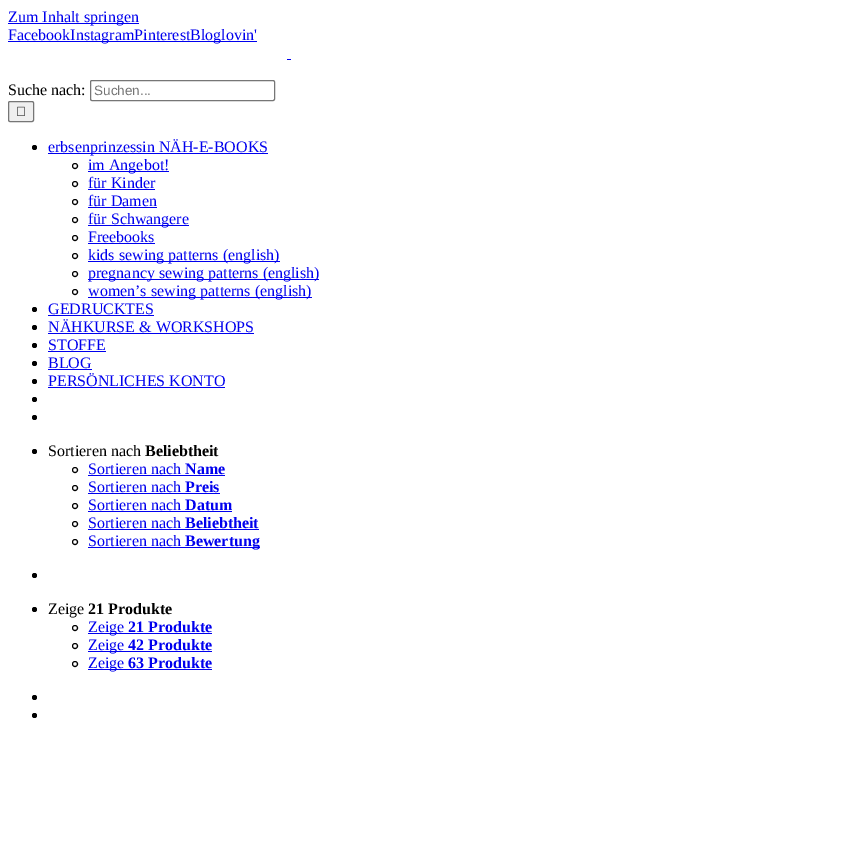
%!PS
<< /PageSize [858 842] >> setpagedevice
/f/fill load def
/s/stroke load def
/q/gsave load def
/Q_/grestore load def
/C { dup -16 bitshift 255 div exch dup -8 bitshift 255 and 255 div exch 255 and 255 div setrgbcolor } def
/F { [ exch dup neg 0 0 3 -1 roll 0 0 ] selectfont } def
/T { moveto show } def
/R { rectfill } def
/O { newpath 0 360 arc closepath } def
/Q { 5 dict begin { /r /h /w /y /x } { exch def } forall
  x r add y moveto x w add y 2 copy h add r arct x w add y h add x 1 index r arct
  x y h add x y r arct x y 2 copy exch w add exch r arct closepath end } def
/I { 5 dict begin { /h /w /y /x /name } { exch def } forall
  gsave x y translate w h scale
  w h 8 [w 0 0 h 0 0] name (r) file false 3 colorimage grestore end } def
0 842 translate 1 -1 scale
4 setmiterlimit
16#FFFFFF C
0 0 858 842 R
16#0000EE C
8 23 131 1 R
/LiberationSerif-Regular 16 F
(Zum Inhalt springen) 8 22 T
8 41 182 1 R
(FacebookInstagramPinterest) 8 40 T
190 41 67 1 R
(Bloglovin') 190 40 T
287 59 4 1 R
16#000000 C
(Suche nach:) 8 95 T
16#767676 C
90.5 80.5 184 20 1.5 Q s
/LiberationSans-Regular 13.5 F
16#757575 C
(Suchen...) 94 95 T
16#EFEFEF C
8.5 101.5 25 20 1.5 Q q f Q_
16#767676 C
s
(1.rgb) 17 106 8 10 I
16#000000 C
34.5 147.5 2.5 O f
16#0000EE C
48 153 220 1 R
/LiberationSerif-Regular 16 F
(erbsenprinzessin NÄH-E-BOOKS) 48 152 T
16#000000 C
75 166 2.5 O s
16#0000EE C
88 171 81 1 R
(im Angebot!) 88 170 T
16#000000 C
75 184 2.5 O s
16#0000EE C
(für Kinder) 88 188 T
88 189 67 1 R
16#000000 C
75 202 2.5 O s
16#0000EE C
(für Damen) 88 206 T
88 207 69 1 R
16#000000 C
75 220 2.5 O s
16#0000EE C
88 225 101 1 R
(für Schwangere) 88 224 T
16#000000 C
75 238 2.5 O s
16#0000EE C
(Freebooks) 88 242 T
88 243 67 1 R
16#000000 C
75 256 2.5 O s
16#0000EE C
88 261 192 1 R
(kids sewing patterns \(english\)) 88 260 T
16#000000 C
75 274 2.5 O s
16#0000EE C
88 279 231 1 R
(pregnancy sewing patterns \(english\)) 88 278 T
16#000000 C
75 292 2.5 O s
16#0000EE C
88 297 224 1 R
(women’s sewing patterns \(english\)) 88 296 T
16#000000 C
34.5 309.5 2.5 O f
16#0000EE C
(GEDRUCKTES) 48 314 T
48 315 106 1 R
16#000000 C
34.5 327.5 2.5 O f
16#0000EE C
(NÄHKURSE & WORKSHOPS) 48 332 T
48 333 206 1 R
16#000000 C
34.5 345.5 2.5 O f
16#0000EE C
(STOFFE) 48 350 T
48 351 58 1 R
16#000000 C
34.5 363.5 2.5 O f
16#0000EE C
(BLOG) 48 368 T
48 369 44 1 R
16#000000 C
34.5 381.5 2.5 O f
16#0000EE C
(PERSÖNLICHES KONTO) 48 386 T
48 387 177 1 R
16#000000 C
34.5 399.5 2.5 O f
34.5 417.5 2.5 O f
34.5 451.5 2.5 O f
(Sortieren nach) 48 456 T
/LiberationSerif-Bold 16 F
(Beliebtheit) 145 456 T
75 470 2.5 O s
/LiberationSerif-Regular 16 F
16#0000EE C
(Sortieren nach) 88 474 T
/LiberationSerif-Bold 16 F
(Name) 185 474 T
88 475 137 1 R
16#000000 C
75 488 2.5 O s
/LiberationSerif-Regular 16 F
16#0000EE C
(Sortieren nach) 88 492 T
88 493 132 1 R
/LiberationSerif-Bold 16 F
(Preis) 185 492 T
16#000000 C
75 506 2.5 O s
/LiberationSerif-Regular 16 F
16#0000EE C
(Sortieren nach) 88 510 T
/LiberationSerif-Bold 16 F
(Datum) 185 510 T
88 511 144 1 R
16#000000 C
75 524 2.5 O s
/LiberationSerif-Regular 16 F
16#0000EE C
(Sortieren nach) 88 528 T
88 529 171 1 R
/LiberationSerif-Bold 16 F
(Beliebtheit) 185 528 T
16#000000 C
75 542 2.5 O s
/LiberationSerif-Regular 16 F
16#0000EE C
(Sortieren nach) 88 546 T
88 547 172 1 R
/LiberationSerif-Bold 16 F
(Bewertung) 185 546 T
16#000000 C
34.5 575.5 2.5 O f
34.5 609.5 2.5 O f
/LiberationSerif-Regular 16 F
(Zeige) 48 614 T
/LiberationSerif-Bold 16 F
(21 Produkte) 88 614 T
75 628 2.5 O s
16#0000EE C
88 633 124 1 R
/LiberationSerif-Regular 16 F
(Zeige) 88 632 T
/LiberationSerif-Bold 16 F
(21 Produkte) 128 632 T
16#000000 C
75 646 2.5 O s
16#0000EE C
88 651 124 1 R
/LiberationSerif-Regular 16 F
(Zeige) 88 650 T
/LiberationSerif-Bold 16 F
(42 Produkte) 128 650 T
16#000000 C
75 664 2.5 O s
16#0000EE C
88 669 124 1 R
/LiberationSerif-Regular 16 F
(Zeige) 88 668 T
/LiberationSerif-Bold 16 F
(63 Produkte) 128 668 T
16#000000 C
34.5 697.5 2.5 O f
34.5 715.5 2.5 O f
showpage
